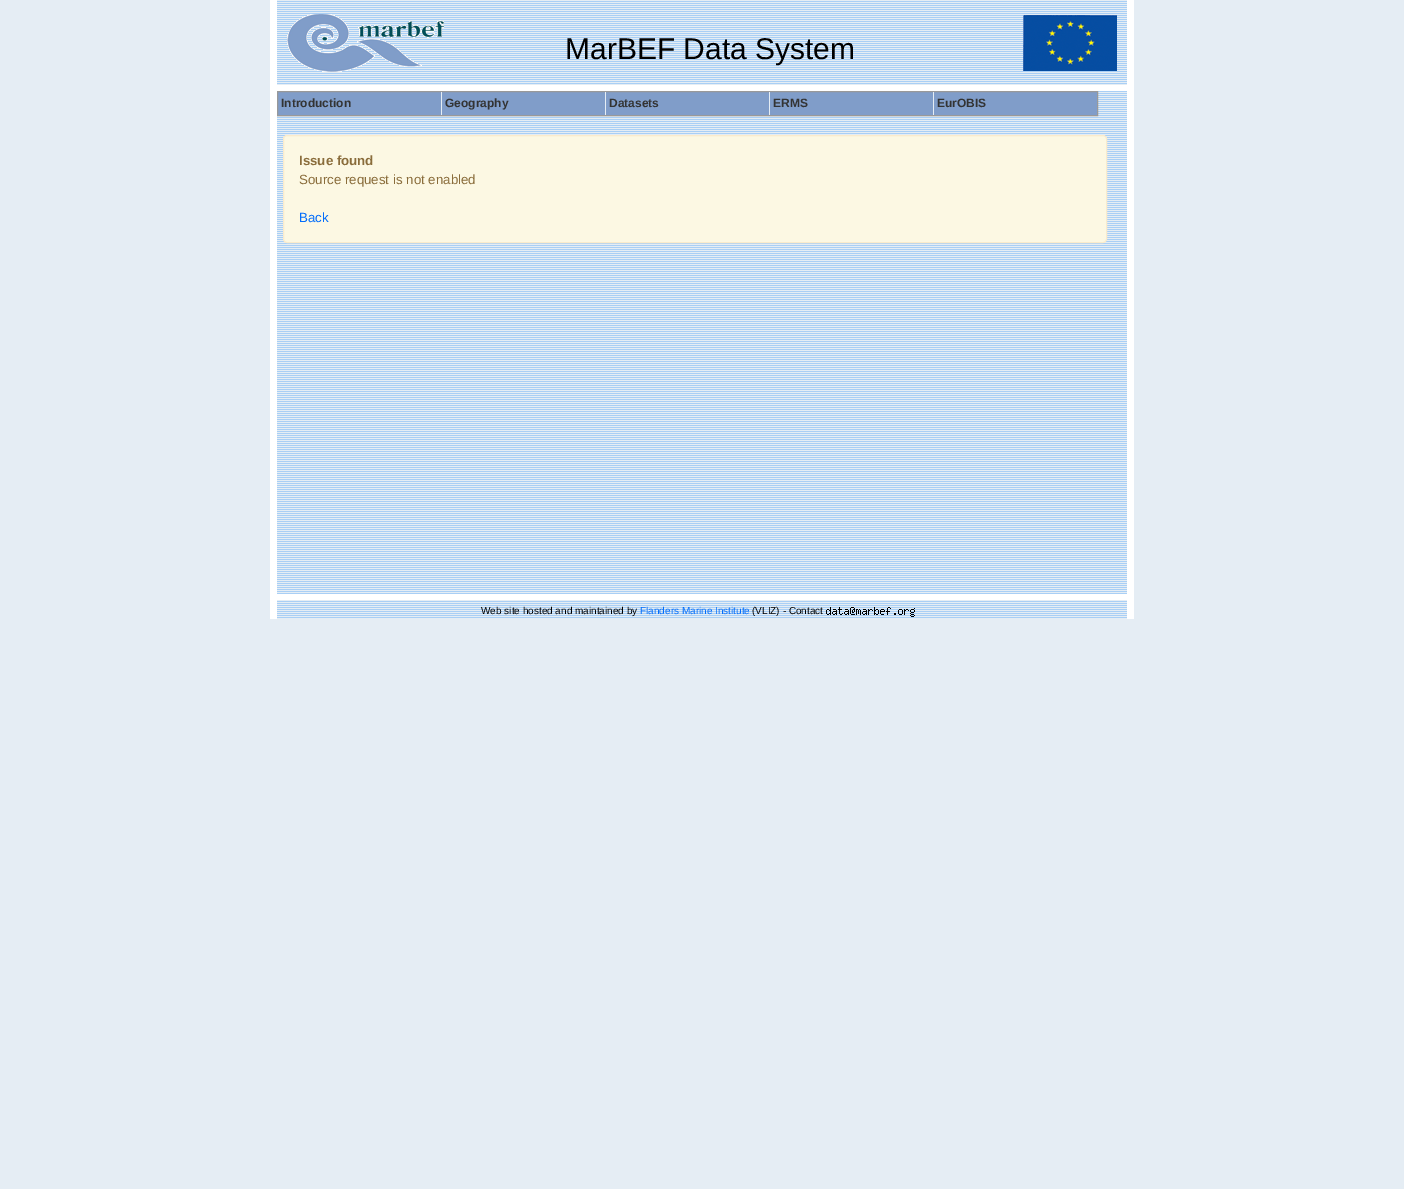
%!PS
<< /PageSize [1404 1189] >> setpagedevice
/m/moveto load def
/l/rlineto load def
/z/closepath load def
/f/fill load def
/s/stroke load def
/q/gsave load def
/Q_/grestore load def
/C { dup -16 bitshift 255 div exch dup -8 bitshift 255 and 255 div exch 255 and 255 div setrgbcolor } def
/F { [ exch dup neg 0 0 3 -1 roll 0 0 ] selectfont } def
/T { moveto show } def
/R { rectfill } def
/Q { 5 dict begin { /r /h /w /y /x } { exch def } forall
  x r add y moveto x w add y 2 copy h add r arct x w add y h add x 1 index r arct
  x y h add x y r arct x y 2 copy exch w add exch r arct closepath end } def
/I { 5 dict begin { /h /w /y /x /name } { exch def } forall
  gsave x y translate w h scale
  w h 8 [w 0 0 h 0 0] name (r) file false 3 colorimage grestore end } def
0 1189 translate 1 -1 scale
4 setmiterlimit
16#E5EDF4 C
0 0 1404 1189 R
(1.rgb) 277 1 850 617 I
16#FFFFFF C
270 0 7 619 R
(2.rgb) 287 14 157 58 I
/LiberationSans-Regular 30 F
16#000000 C
(MarBEF Data System) 565 59 T
(3.rgb) 1023 15 94 56 I
16#FFFFFF C
277 85 850 6 R
16#809DC9 C
277.5 91.5 m 820 0 l 0 24 l -820 0 l z q f Q_
16#999999 C
s
/LiberationSans-Bold 12 F
16#333333 C
(Introduction) 281 107 T
16#E5EDF4 C
441 92 1 23 R
16#333333 C
(Geography) 445 107 T
16#E5EDF4 C
605 92 1 23 R
16#333333 C
(Datasets) 609 107 T
16#E5EDF4 C
769 92 1 23 R
16#333333 C
(ERMS) 773 107 T
16#E5EDF4 C
933 92 1 23 R
16#333333 C
(EurOBIS) 937 107 T
16#FCF8E3 C
283.5 135.5 823 107 3.5 Q q f Q_
16#FAEBCC C
s
/LiberationSans-Bold 13.3 F
16#8A6D3B C
(Issue found) 299 165 T
/LiberationSans-Regular 13.3 F
(Source request is not enabled) 299 184 T
16#026DFB C
(Back) 299 222 T
16#FFFFFF C
277 594 850 6 R
1127 0 7 619 R
/LiberationSans-Regular 10 F
16#000000 C
(Web site hosted and maintained by) 481 614 T
16#026DFB C
(Flanders Marine Institute) 640 614 T
16#000000 C
(\(VLIZ\) - Contact) 752 614 T
(4.rgb) 826 607 89 10 I
showpage
